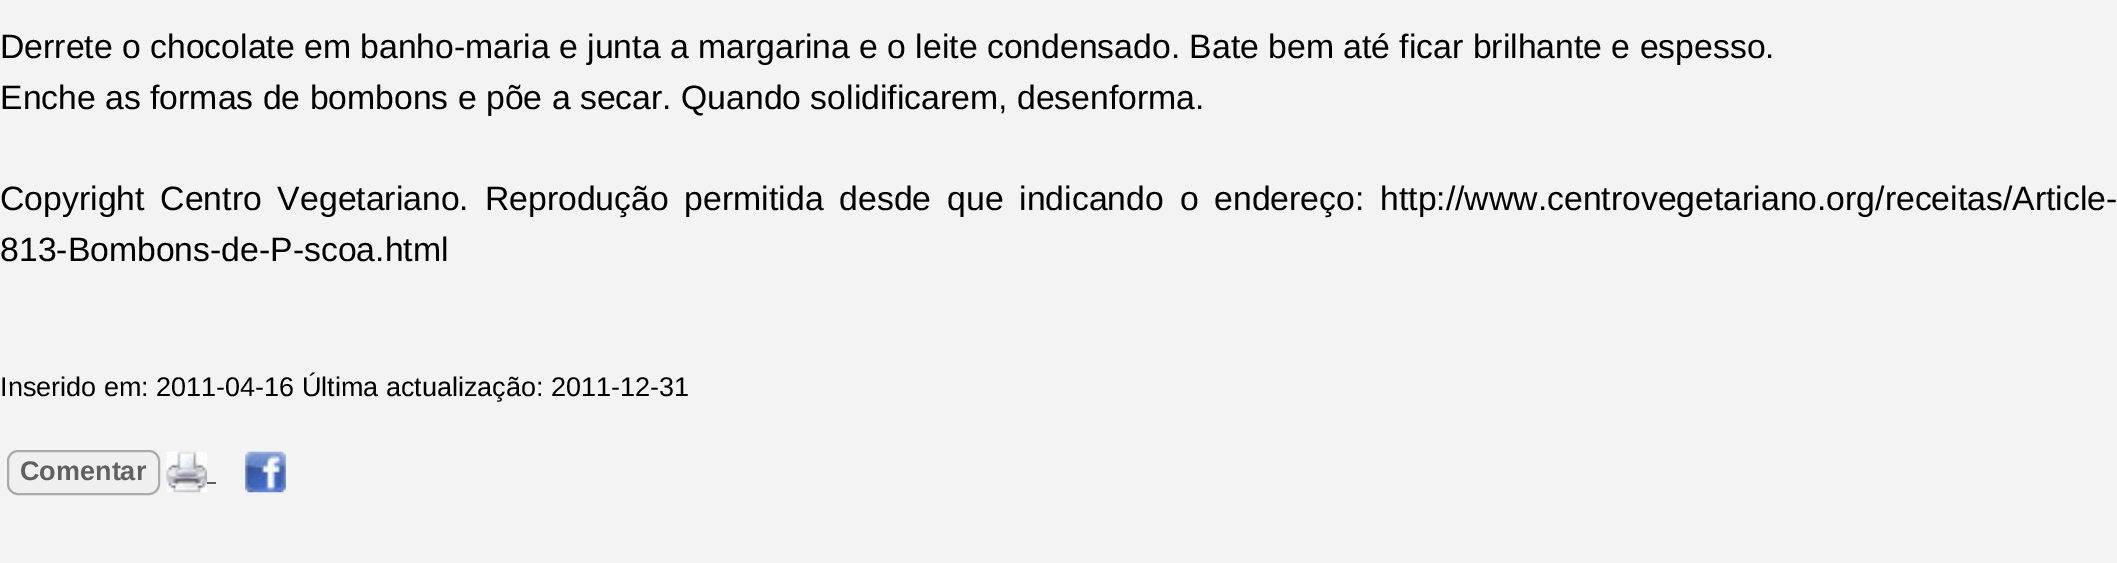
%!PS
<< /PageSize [2117 563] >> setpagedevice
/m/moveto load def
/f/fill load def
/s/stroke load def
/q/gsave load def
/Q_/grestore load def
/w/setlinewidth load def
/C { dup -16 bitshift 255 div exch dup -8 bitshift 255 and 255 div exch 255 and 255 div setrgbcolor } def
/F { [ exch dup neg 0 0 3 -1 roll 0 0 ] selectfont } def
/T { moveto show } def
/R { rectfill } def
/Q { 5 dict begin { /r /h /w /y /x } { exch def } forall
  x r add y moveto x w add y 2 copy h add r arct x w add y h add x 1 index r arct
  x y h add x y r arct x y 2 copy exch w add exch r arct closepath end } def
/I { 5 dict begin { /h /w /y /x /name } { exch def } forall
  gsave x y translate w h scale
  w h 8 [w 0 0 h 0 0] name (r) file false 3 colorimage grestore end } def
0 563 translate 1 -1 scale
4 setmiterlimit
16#F3F3F3 C
0 0 2117 563 R
/LiberationSans-Regular 33.75 F
16#000000 C
(Derrete o chocolate em banho-maria e junta a margarina e o leite condensado. Bate bem até ficar brilhante e espesso.) 0 58 T
(Enche as formas de bombons e põe a secar. Quando solidificarem, desenforma.) 0 109 T
0 210 m 6.5 0 32 (Copyright Centro Vegetariano. Reprodução permitida desde que indicando o endereço:) widthshow
(http://www.centrovegetariano.org/receitas/Article-) 1380 210 T
(813-Bombons-de-P-scoa.html) 0 261 T
/LiberationSans-Regular 27 F
(Inserido em: 2011-04-16 Última actualização: 2011-12-31) 0 396 T
16#F0F0F0 C
8 451 151 43 10 Q q f Q_
16#AAAAAA C
2 w
s
/LiberationSans-Bold 27 F
16#606060 C
(Comentar) 20 480 T
207 482 9 2 R
(1.rgb) 166 451 41 42 I
(2.rgb) 245 451 41 42 I
showpage
